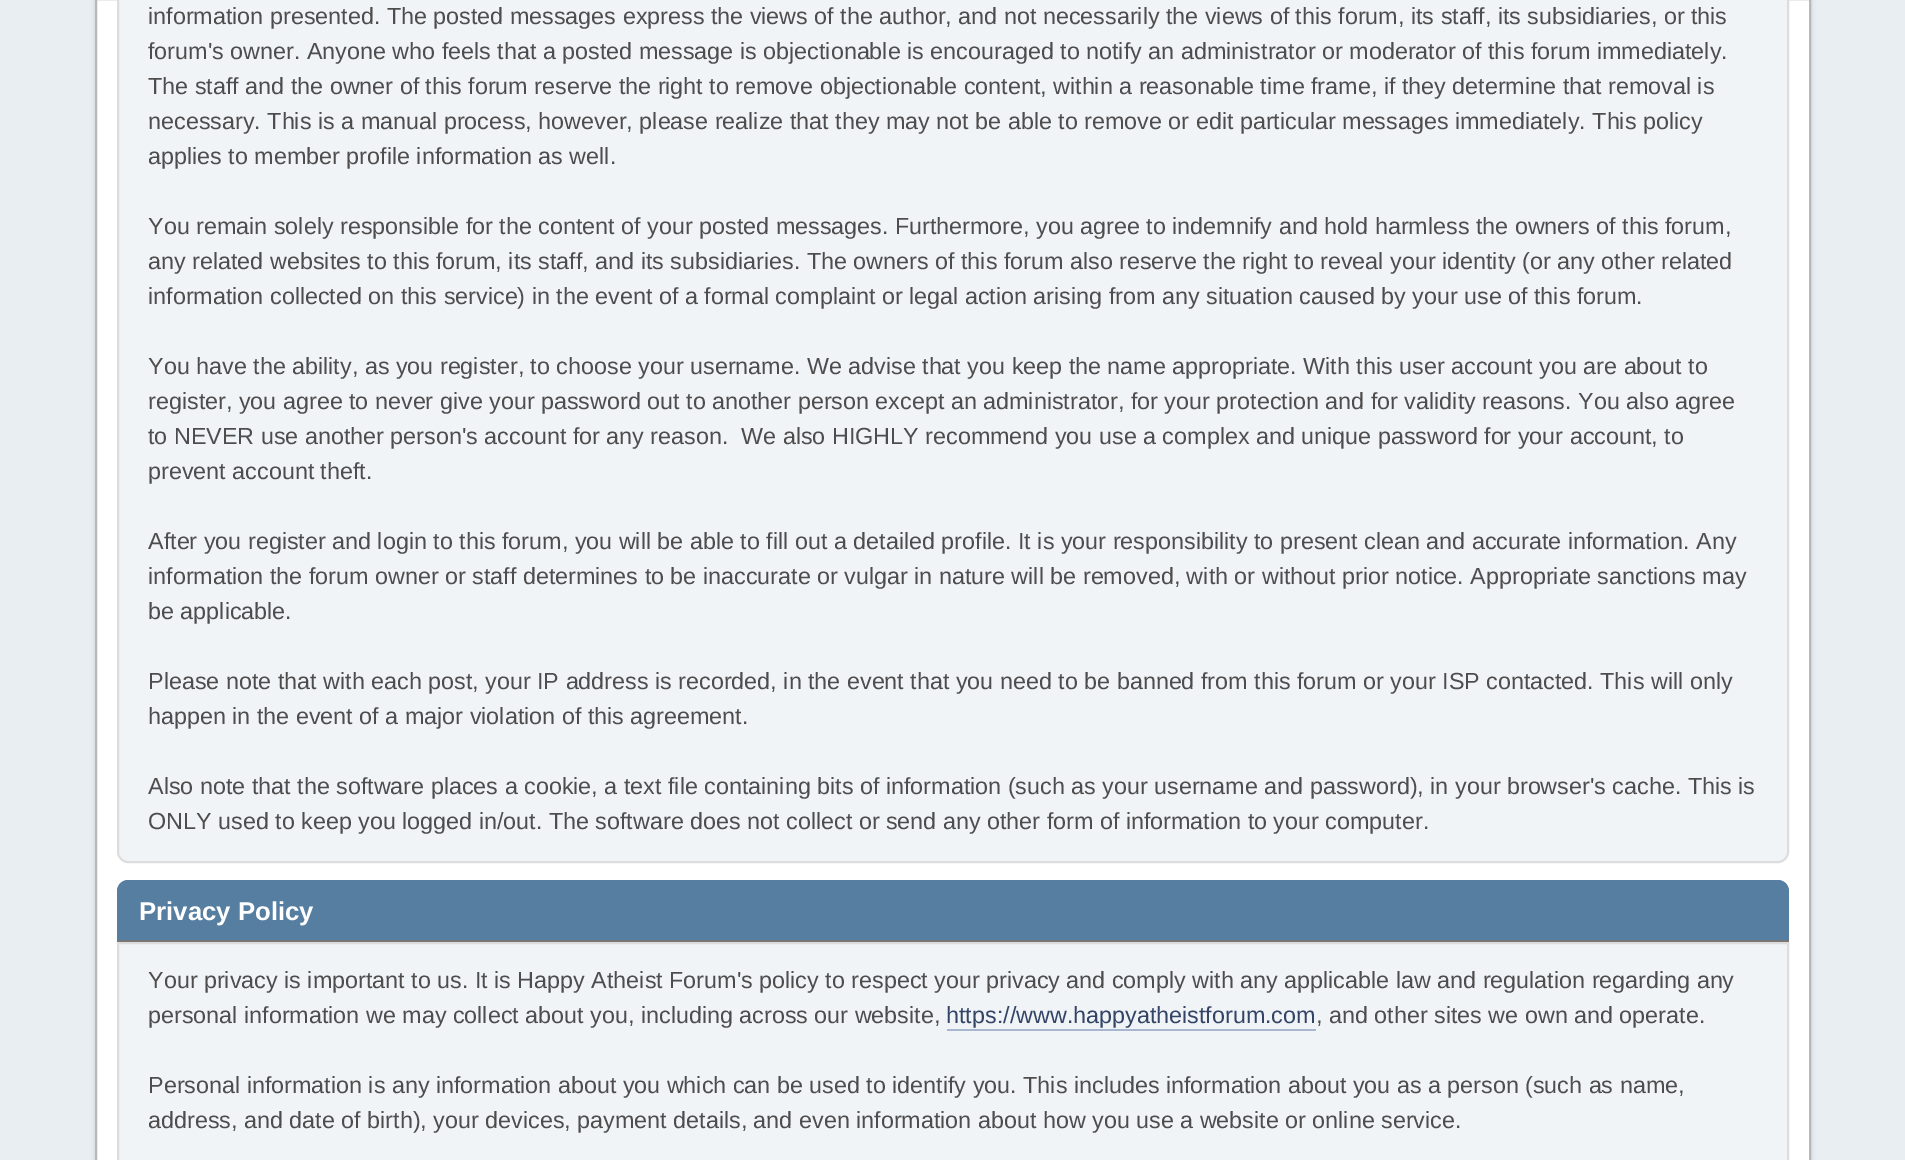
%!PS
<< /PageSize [1905 1160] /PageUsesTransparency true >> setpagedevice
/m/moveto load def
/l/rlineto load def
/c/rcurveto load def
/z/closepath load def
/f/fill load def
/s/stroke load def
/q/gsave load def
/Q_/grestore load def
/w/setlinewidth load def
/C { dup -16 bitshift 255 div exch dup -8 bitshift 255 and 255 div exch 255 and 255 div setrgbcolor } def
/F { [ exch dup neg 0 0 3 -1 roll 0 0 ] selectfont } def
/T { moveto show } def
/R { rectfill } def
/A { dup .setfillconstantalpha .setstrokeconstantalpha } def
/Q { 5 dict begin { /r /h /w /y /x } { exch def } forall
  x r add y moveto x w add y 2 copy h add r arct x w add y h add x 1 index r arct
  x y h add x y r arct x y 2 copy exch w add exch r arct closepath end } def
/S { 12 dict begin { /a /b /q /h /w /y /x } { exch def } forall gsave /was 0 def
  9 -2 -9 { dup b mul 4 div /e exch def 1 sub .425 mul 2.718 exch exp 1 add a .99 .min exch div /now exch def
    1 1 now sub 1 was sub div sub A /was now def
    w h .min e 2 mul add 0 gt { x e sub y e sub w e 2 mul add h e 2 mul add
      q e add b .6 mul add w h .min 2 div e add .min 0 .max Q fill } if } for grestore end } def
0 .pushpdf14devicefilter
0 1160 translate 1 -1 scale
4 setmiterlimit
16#E9EEF2 C
0 0 1905 1160 R
16#000000 C
95 -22 1716 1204 14 2.5 .14 S
16#FFFFFF C
96 -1 m 1714 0 l 0 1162 l -1714 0 l z q f Q_
16#B8B8B8 C
2 w
s
16#F0F4F7 C
118 -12 m 1670 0 l 0 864 l 0 5.5 -4.5 10 -10 10 c -1650 0 l -5.5 0 -10 -4.5 -10 -10 c z q f Q_
16#DDDDDD C
s
/LiberationSans-Regular 23.33 F
16#4D4D4D C
(information presented. The posted messages express the views of the author, and not necessarily the views of this forum, its staff, its subsidiaries, or this) 148 24 T
(forum's owner. Anyone who feels that a posted message is objectionable is encouraged to notify an administrator or moderator of this forum immediately.) 148 59 T
(The staff and the owner of this forum reserve the right to remove objectionable content, within a reasonable time frame, if they determine that removal is) 148 94 T
(necessary. This is a manual process, however, please realize that they may not be able to remove or edit particular messages immediately. This policy) 148 129 T
(applies to member profile information as well.) 148 164 T
(You remain solely responsible for the content of your posted messages. Furthermore, you agree to indemnify and hold harmless the owners of this forum,) 148 234 T
(any related websites to this forum, its staff, and its subsidiaries. The owners of this forum also reserve the right to reveal your identity \(or any other related) 148 269 T
(information collected on this service\) in the event of a formal complaint or legal action arising from any situation caused by your use of this forum.) 148 304 T
(You have the ability, as you register, to choose your username. We advise that you keep the name appropriate. With this user account you are about to) 148 374 T
(register, you agree to never give your password out to another person except an administrator, for your protection and for validity reasons. You also agree) 148 409 T
(to NEVER use another person's account for any reason.  We also HIGHLY recommend you use a complex and unique password for your account, to) 148 444 T
(prevent account theft.) 148 479 T
(After you register and login to this forum, you will be able to fill out a detailed profile. It is your responsibility to present clean and accurate information. Any) 148 549 T
(information the forum owner or staff determines to be inaccurate or vulgar in nature will be removed, with or without prior notice. Appropriate sanctions may) 148 584 T
(be applicable.) 148 619 T
(Please note that with each post, your IP address is recorded, in the event that you need to be banned from this forum or your ISP contacted. This will only) 148 689 T
(happen in the event of a major violation of this agreement.) 148 724 T
(Also note that the software places a cookie, a text file containing bits of information \(such as your username and password\), in your browser's cache. This is) 148 794 T
(ONLY used to keep you logged in/out. The software does not collect or send any other form of information to your computer.) 148 829 T
16#557EA0 C
128 880 m 1650 0 l 6 0 11 5 11 11 c 0 51 l -1672 0 l 0 -51 l 0 -6 5 -11 11 -11 c z f
16#777777 C
117 940 1672 2 R
/LiberationSans-Bold 25.75 F
16#FFFFFF C
(Privacy Policy) 139 920 T
16#F0F4F7 C
118 943 m 1670 0 l 0 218 l -1670 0 l z q f Q_
16#DDDDDD C
s
/LiberationSans-Regular 23.33 F
16#4D4D4D C
(Your privacy is important to us. It is Happy Atheist Forum's policy to respect your privacy and comply with any applicable law and regulation regarding any) 148 988 T
(personal information we may collect about you, including across our website,) 148 1023 T
16#334466 C
(https://www.happyatheistforum.com) 946 1023 T
16#A8B6CF C
947 1029 369 2 R
16#4D4D4D C
(, and other sites we own and operate.) 1316 1023 T
(Personal information is any information about you which can be used to identify you. This includes information about you as a person \(such as name,) 148 1093 T
(address, and date of birth\), your devices, payment details, and even information about how you use a website or online service.) 148 1128 T
.poppdf14devicefilter showpage
